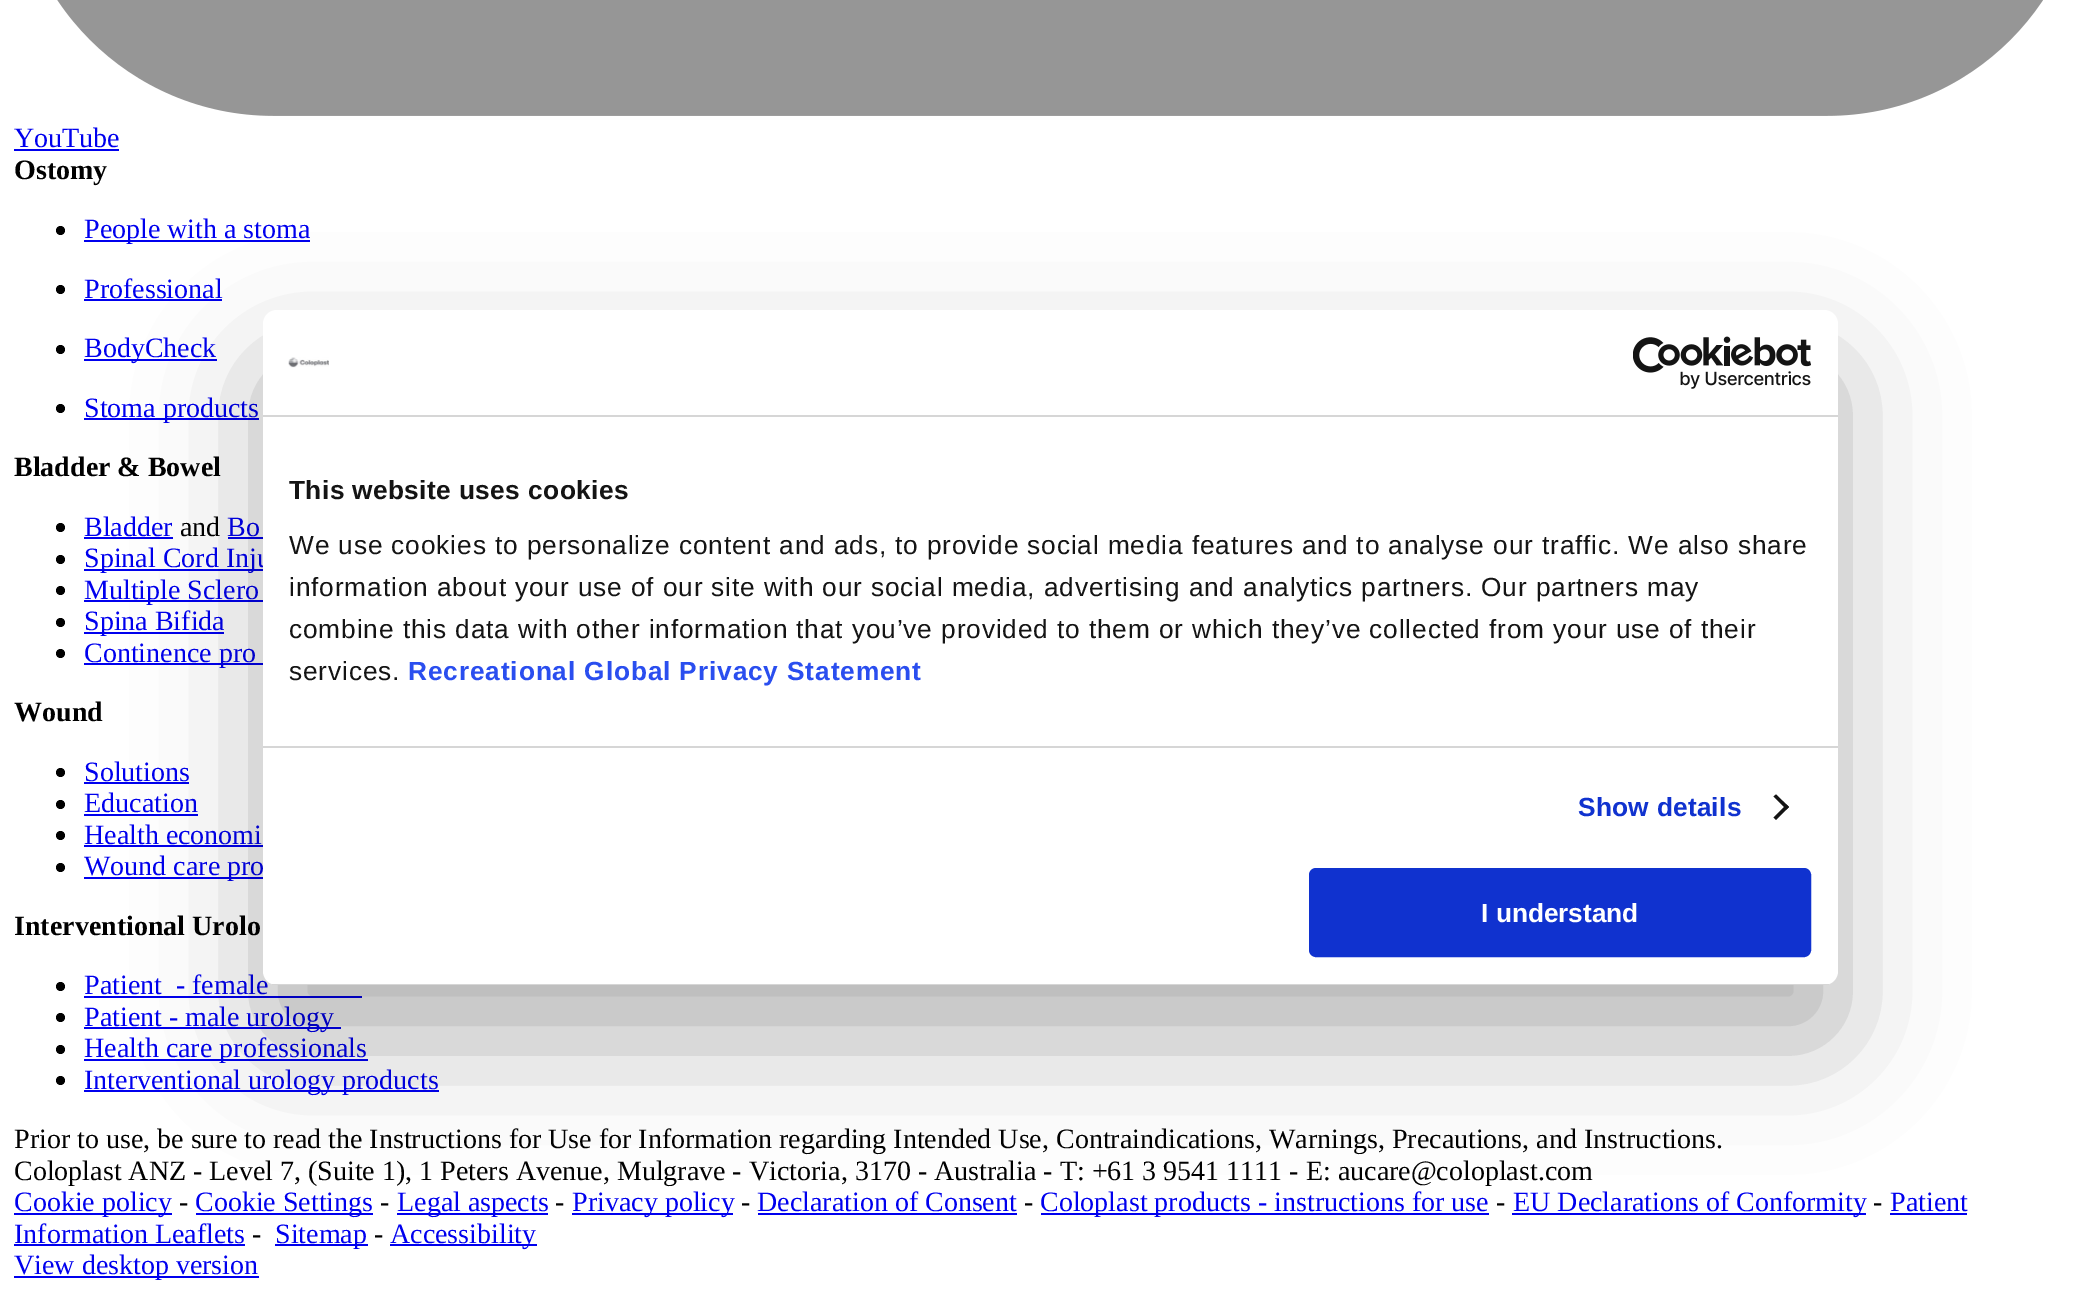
%!PS
<< /PageSize [2100 1295] /PageUsesTransparency true >> setpagedevice
/m/moveto load def
/l/rlineto load def
/z/closepath load def
/f/fill load def
/s/stroke load def
/q/gsave load def
/Q_/grestore load def
/w/setlinewidth load def
/C { dup -16 bitshift 255 div exch dup -8 bitshift 255 and 255 div exch 255 and 255 div setrgbcolor } def
/F { [ exch dup neg 0 0 3 -1 roll 0 0 ] selectfont } def
/T { moveto show } def
/R { rectfill } def
/A { dup .setfillconstantalpha .setstrokeconstantalpha } def
/O { newpath 0 360 arc closepath } def
/Q { 5 dict begin { /r /h /w /y /x } { exch def } forall
  x r add y moveto x w add y 2 copy h add r arct x w add y h add x 1 index r arct
  x y h add x y r arct x y 2 copy exch w add exch r arct closepath end } def
/S { 12 dict begin { /a /b /q /h /w /y /x } { exch def } forall gsave /was 0 def
  9 -2 -9 { dup b mul 4 div /e exch def 1 sub .425 mul 2.718 exch exp 1 add a .99 .min exch div /now exch def
    1 1 now sub 1 was sub div sub A /was now def
    w h .min e 2 mul add 0 gt { x e sub y e sub w e 2 mul add h e 2 mul add
      q e add b .6 mul add w h .min 2 div e add .min 0 .max Q fill } if } for grestore end } def
/I { 5 dict begin { /h /w /y /x /name } { exch def } forall
  gsave x y translate w h scale
  w h 8 [w 0 0 h 0 0] name (r) file false 3 colorimage grestore end } def
0 .pushpdf14devicefilter
0 1295 translate 1 -1 scale
4 setmiterlimit
16#FFFFFF C
0 0 2100 1295 R
(1.rgb) 57 0 1986 116 I
/LiberationSerif-Regular 28 F
16#0000EE C
(YouTube) 14 147 T
14 149 105 2 R
/LiberationSerif-Bold 28 F
16#000000 C
(Ostomy) 14 179 T
60.5 230.5 4.5 O f
16#0000EE C
84 240 226 2 R
/LiberationSerif-Regular 28 F
(People with a stoma) 84 238 T
16#000000 C
60.5 289.5 4.5 O f
16#0000EE C
(Professional) 84 298 T
84 299 138 2 R
16#000000 C
60.5 349.5 4.5 O f
16#0000EE C
84 359 133 2 R
(BodyCheck) 84 357 T
16#000000 C
60.5 408.5 4.5 O f
16#0000EE C
84 418 175 2 R
(Stoma products) 84 417 T
/LiberationSerif-Bold 28 F
16#000000 C
(Bladder & Bowel) 14 476 T
60.5 527.5 4.5 O f
/LiberationSerif-Regular 28 F
16#0000EE C
(Bladder) 84 536 T
84 537 89 2 R
16#000000 C
(and) 180 536 T
16#0000EE C
(Bo) 227 536 T
228 537 35 2 R
16#000000 C
60.5 559.5 4.5 O f
16#0000EE C
84 569 179 2 R
(Spinal Cord Inju) 84 567 T
16#000000 C
60.5 590.5 4.5 O f
16#0000EE C
84 600 179 2 R
(Multiple Sclero) 84 599 T
16#000000 C
60.5 622.5 4.5 O f
16#0000EE C
84 632 140 2 R
(Spina Bifida) 84 630 T
16#000000 C
60.5 653.5 4.5 O f
16#0000EE C
84 663 179 2 R
(Continence pro) 84 662 T
/LiberationSerif-Bold 28 F
16#000000 C
(Wound) 14 721 T
60.5 772.5 4.5 O f
/LiberationSerif-Regular 28 F
16#0000EE C
(Solutions) 84 781 T
84 782 105 2 R
16#000000 C
60.5 804.5 4.5 O f
16#0000EE C
(Education) 84 812 T
84 814 114 2 R
16#000000 C
60.5 835.5 4.5 O f
16#0000EE C
(Health economi) 84 844 T
84 845 179 2 R
16#000000 C
60.5 867.5 4.5 O f
16#0000EE C
84 877 179 2 R
(Wound care pro) 84 875 T
/LiberationSerif-Bold 28 F
16#000000 C
(Interventional Urolo) 14 935 T
60.5 986.5 4.5 O f
/LiberationSerif-Regular 28 F
16#0000EE C
(Patient  - female) 84 994 T
84 996 278 2 R
16#000000 C
60.5 1017.5 4.5 O f
16#0000EE C
84 1027 257 2 R
(Patient - male urology) 84 1026 T
16#000000 C
60.5 1049.5 4.5 O f
16#0000EE C
84 1059 284 2 R
(Health care professionals) 84 1057 T
16#000000 C
60.5 1080.5 4.5 O f
16#0000EE C
84 1090 355 2 R
(Interventional urology products) 84 1089 T
16#000000 C
(Prior to use, be sure to read the Instructions for Use for Information regarding Intended Use, Contraindications, Warnings, Precautions, and Instructions.) 14 1148 T
(Coloplast ANZ - Level 7, \(Suite 1\), 1 Peters Avenue, Mulgrave - Victoria, 3170 - Australia - T: +61 3 9541 1111 - E: aucare@coloplast.com) 14 1180 T
16#0000EE C
14 1213 158 2 R
(Cookie policy) 14 1211 T
16#000000 C
(-) 179 1211 T
16#0000EE C
196 1213 177 2 R
(Cookie Settings) 195 1211 T
16#000000 C
(-) 380 1211 T
16#0000EE C
397 1213 151 2 R
(Legal aspects) 397 1211 T
16#000000 C
(-) 555 1211 T
16#0000EE C
572 1213 161 2 R
(Privacy policy) 572 1211 T
16#000000 C
(-) 741 1211 T
16#0000EE C
(Declaration of Consent) 757 1211 T
758 1213 259 2 R
16#000000 C
(-) 1024 1211 T
16#0000EE C
1041 1213 448 2 R
(Coloplast products - instructions for use) 1040 1211 T
16#000000 C
(-) 1496 1211 T
16#0000EE C
1512 1213 354 2 R
(EU Declarations of Conformity) 1513 1211 T
16#000000 C
(-) 1873 1211 T
16#0000EE C
(Patient) 1890 1211 T
1890 1213 77 2 R
(Information Leaflets) 14 1243 T
14 1244 231 2 R
16#000000 C
(-) 252 1243 T
16#0000EE C
275 1244 93 2 R
(Sitemap) 275 1243 T
16#000000 C
(-) 374 1243 T
16#0000EE C
390 1244 147 2 R
(Accessibility) 390 1243 T
14 1276 245 2 R
(View desktop version) 14 1274 T
16#000000 C
263 366 1575 675 14 59.5 .3 S
16#FFFFFF C
263 310 1575 675 14 Q f
16#D6D6D6 C
263 415 1575 2 R
(2.rgb) 288 357 41 11 I
(3.rgb) 1633 336 178 53 I
263 746 1575 2 R
/LiberationSans-Bold 26.25 F
16#141414 C
289 499 m .4 0 (This website uses cookies) ashow
/LiberationSans-Regular 26.25 F
289 554 m .88 0 (We use cookies to personalize content and ads, to provide social media features and to analyse our traffic. We also share) ashow
289 596 m .88 0 (information about your use of our site with our social media, advertising and analytics partners. Our partners may) ashow
289 638 m .88 0 (combine this data with other information that you’ve provided to them or which they’ve collected from your use of their) ashow
289 680 m .88 0 (services.) ashow
/LiberationSans-Bold 26.25 F
16#2A4EEF C
408 680 m .88 0 (Recreational Global Privacy Statement) ashow
16#1032CF C
1578 816 m .25 0 (Show details) ashow
16#141414 C
1776 794.5 m 13 12.5 l -2.5 2.5 l -13 -13 l z f
1786.5 804.5 m 2.5 2.5 l -13 13 l -2.5 -2.5 l z f
q
263 310 1575 675 14 Q clip newpath
16#D6D6D6 C
272 984 1557 1 R
Q_
16#1032CF C
1311 870 498 85 5 Q q f Q_
4 w
s
16#FFFFFF C
(I understand) 1481 922 T
.poppdf14devicefilter showpage
